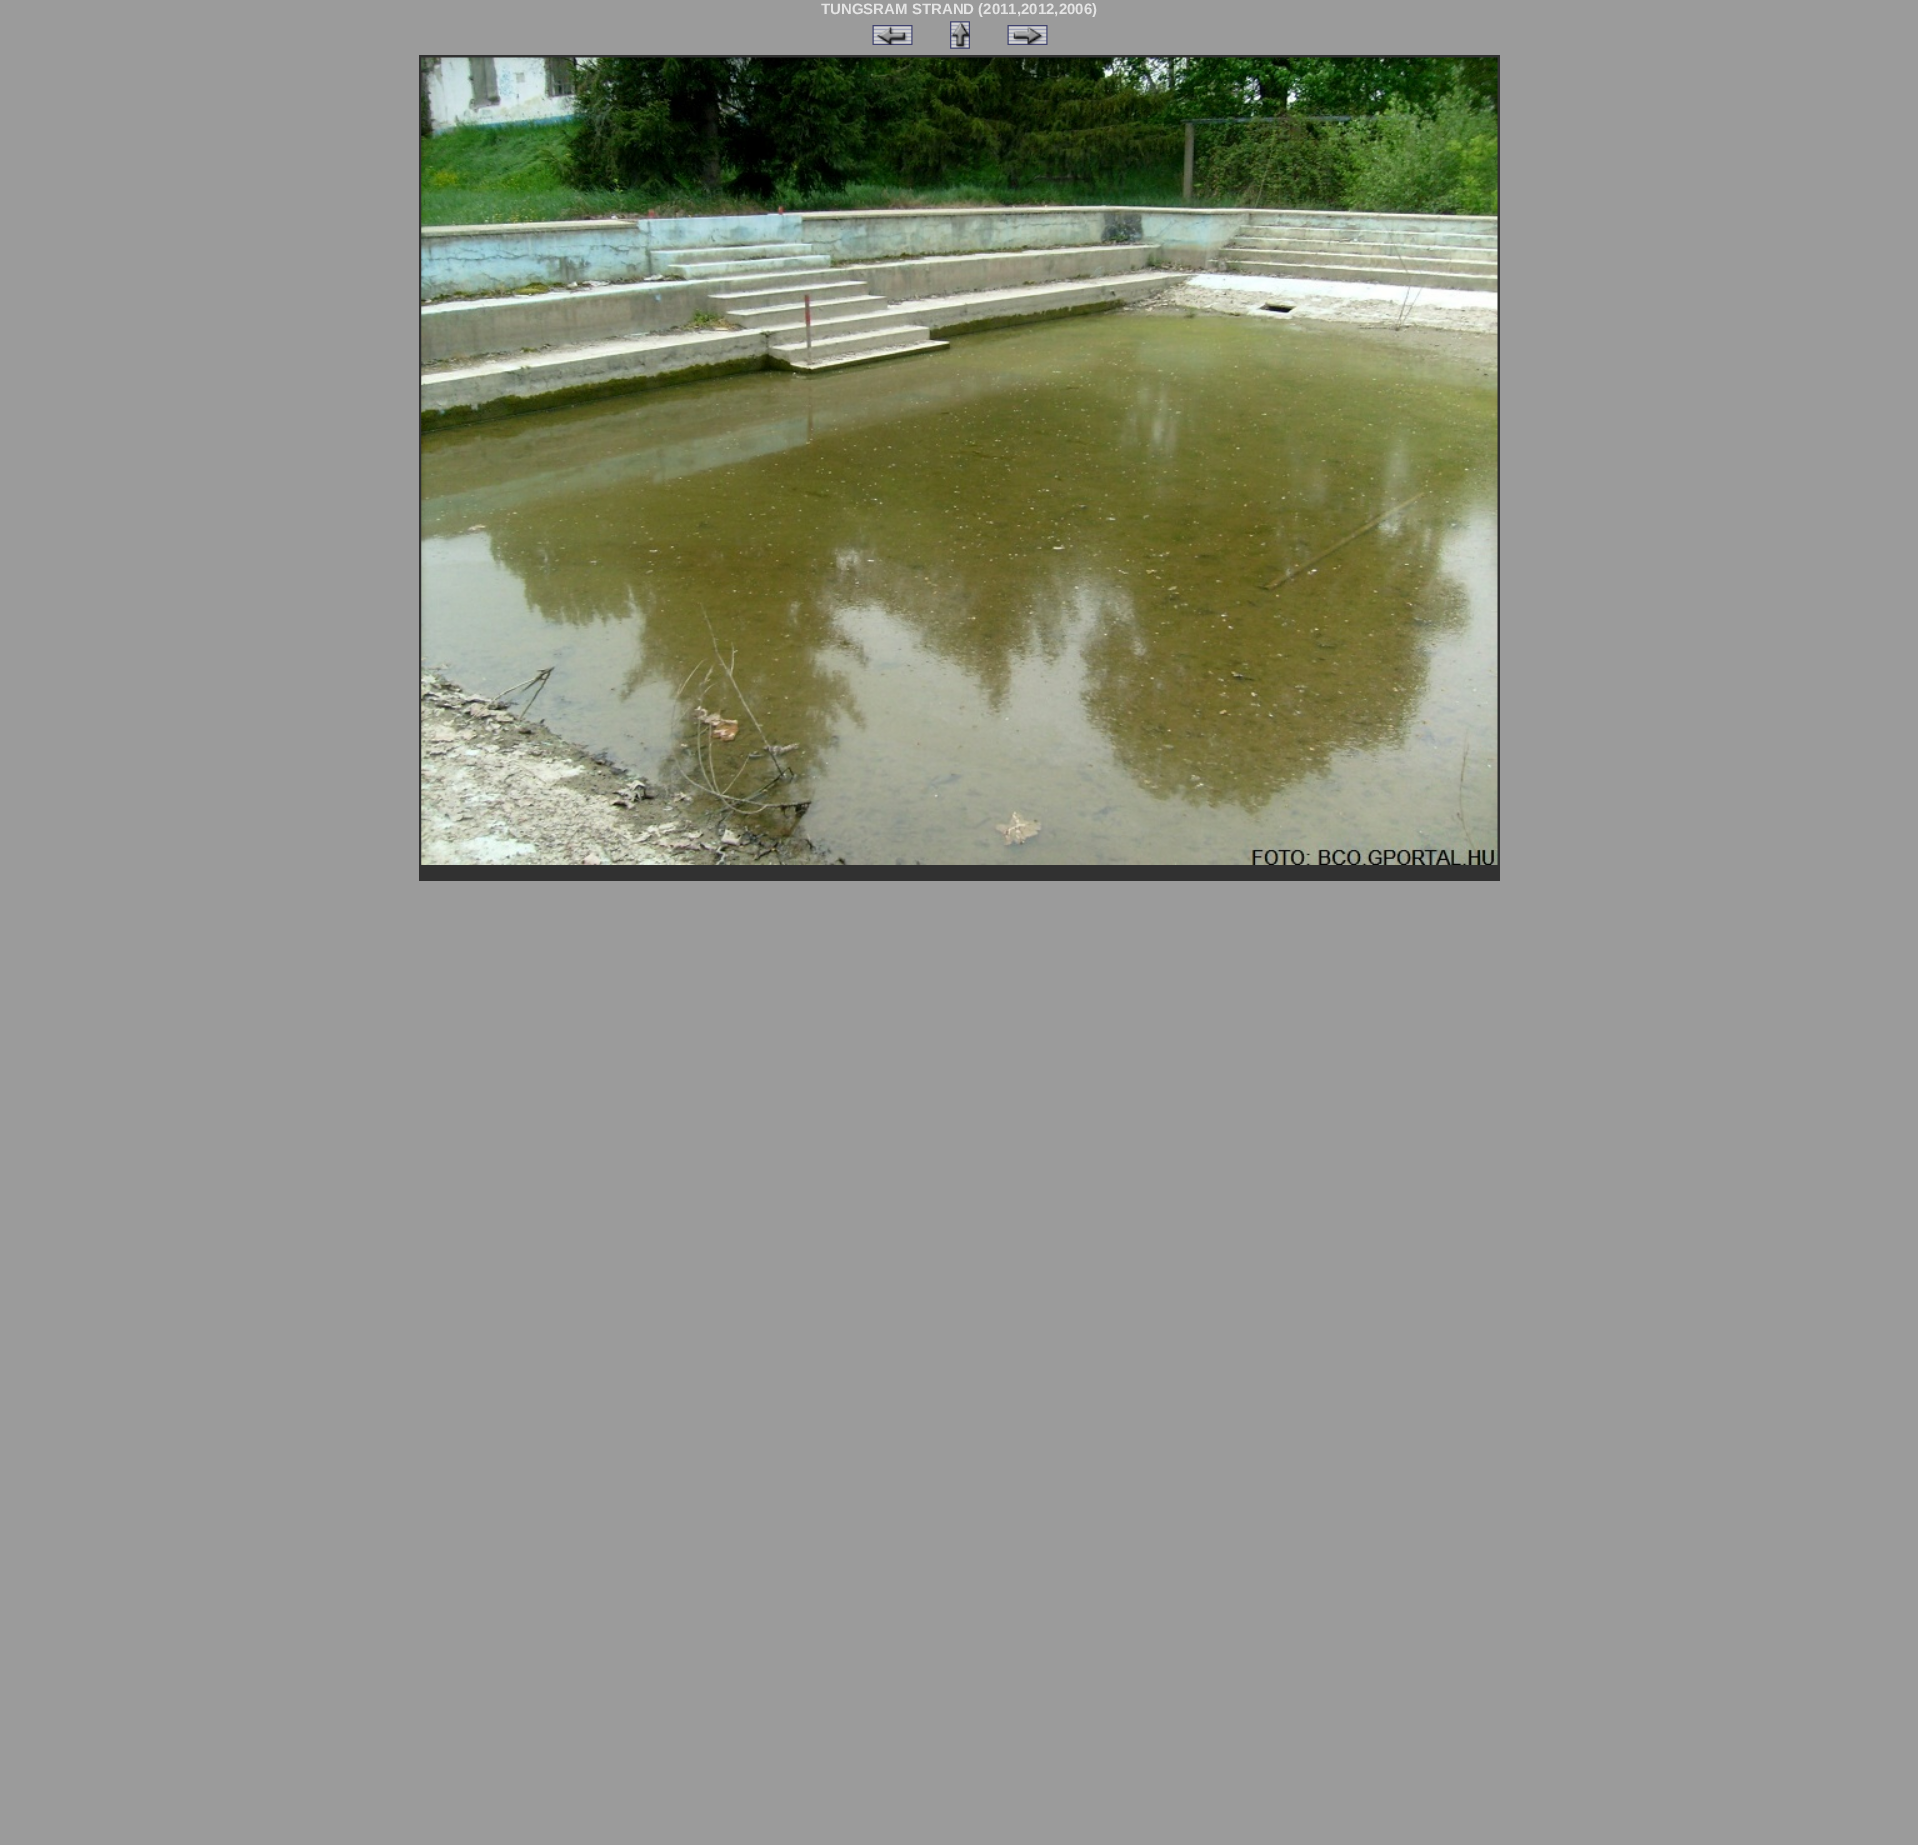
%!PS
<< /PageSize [1918 1845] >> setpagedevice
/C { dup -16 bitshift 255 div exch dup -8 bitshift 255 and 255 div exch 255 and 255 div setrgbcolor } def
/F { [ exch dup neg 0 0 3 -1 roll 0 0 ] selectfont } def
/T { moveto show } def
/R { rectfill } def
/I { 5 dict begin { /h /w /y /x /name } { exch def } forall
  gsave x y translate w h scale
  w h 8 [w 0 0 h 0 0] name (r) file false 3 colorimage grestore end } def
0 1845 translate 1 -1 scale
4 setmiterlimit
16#9B9B9B C
0 0 1918 1845 R
/LiberationSans-Bold 15 F
16#E4E4E4 C
(TUNGSRAM STRAND \(2011,2012,2006\)) 821 14 T
(1.rgb) 872 25 41 20 I
(2.rgb) 950 21 20 28 I
(3.rgb) 1007 25 41 20 I
16#313131 C
419 55 1081 826 R
(4.rgb) 421 57 1077 808 I
showpage
